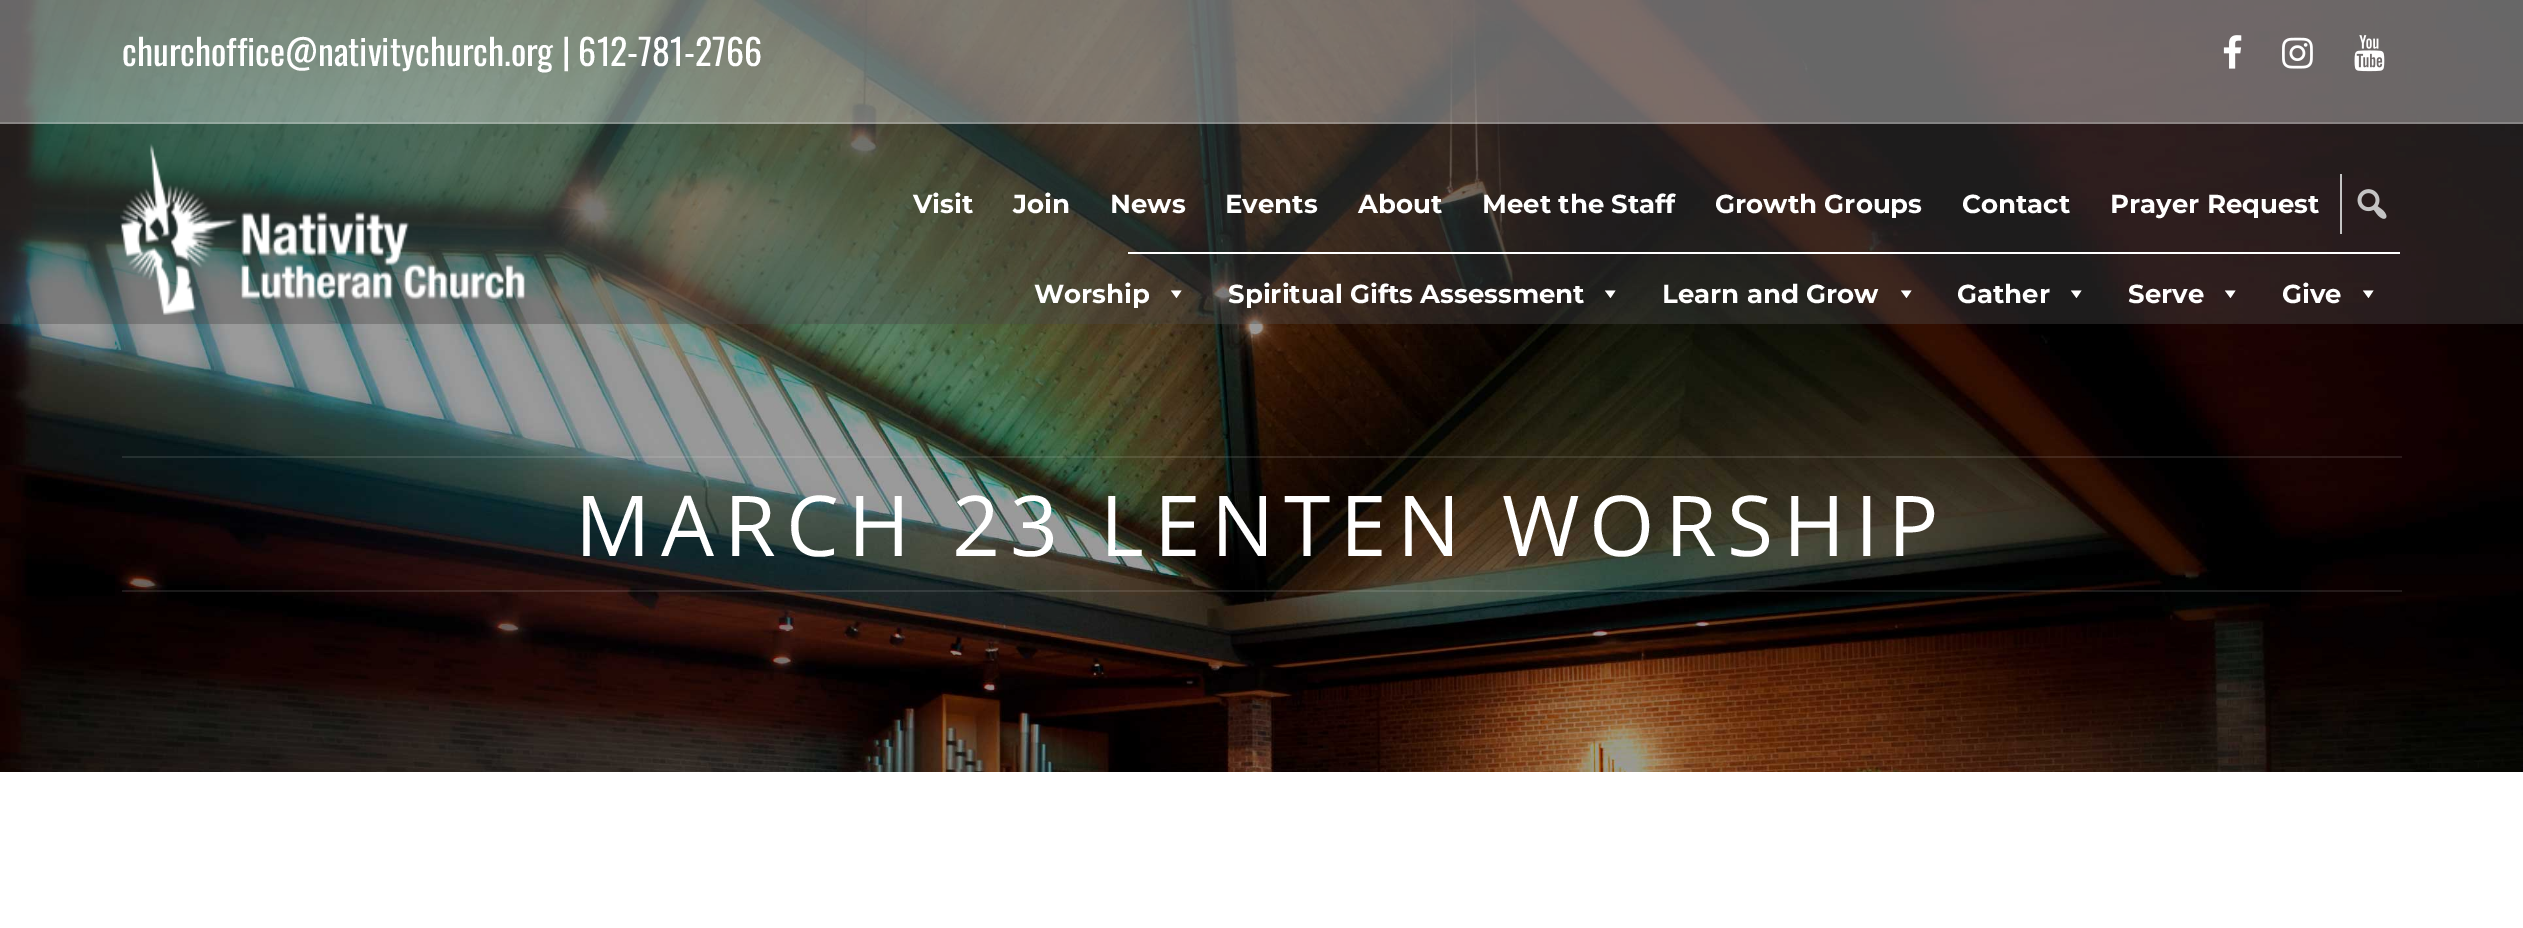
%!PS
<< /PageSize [2523 928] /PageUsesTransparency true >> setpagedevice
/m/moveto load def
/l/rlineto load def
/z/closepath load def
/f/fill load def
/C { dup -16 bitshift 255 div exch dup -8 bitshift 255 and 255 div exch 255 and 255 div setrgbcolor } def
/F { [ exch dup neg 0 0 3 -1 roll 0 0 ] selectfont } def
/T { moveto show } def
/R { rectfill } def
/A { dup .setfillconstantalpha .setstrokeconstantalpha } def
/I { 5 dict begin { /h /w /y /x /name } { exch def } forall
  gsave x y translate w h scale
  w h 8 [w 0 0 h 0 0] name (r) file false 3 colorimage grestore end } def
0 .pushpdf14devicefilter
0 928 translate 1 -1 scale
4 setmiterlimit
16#FFFFFF C
0 0 2523 928 R
(6.rgb) 0 0 2523 772 I
0.39 A
16#4A4949 C
0 0 2523 324 R
0.33 A
16#FFFFFF C
0 0 2523 124 R
0.2 A
0 122 2523 2 R
/Oswald-Regular 36 F
1 A
(churchoffice@nativitychurch.org | 612-781-2766) 122 66 T
(1.rgb) 2223 35 19 34 I
(2.rgb) 2282 37 31 32 I
(3.rgb) 2354 35 31 37 I
(4.rgb) 120 143 405 172 I
/Montserrat-Bold 26 F
(Visit) 913 213 T
(Join) 1013 213 T
(News) 1110 213 T
(Events) 1225 213 T
(About) 1358 213 T
(Meet the Staff) 1482 213 T
(Growth Groups) 1715 213 T
(Contact) 1962 213 T
(Prayer Request) 2110 213 T
16#C4C4C4 C
2340 174 2 60 R
(5.rgb) 2357 189 30 30 I
16#FFFFFF C
1128 252 1272 2 R
(Worship) 1034 303 T
1181.5 290.5 m -5 7.5 l -5.5 -7.5 l z f
(Spiritual Gifts Assessment) 1228 303 T
1615.5 290.5 m -5 7.5 l -5.5 -7.5 l z f
(Learn and Grow) 1662 303 T
1911.5 290.5 m -5 7.5 l -5.5 -7.5 l z f
(Gather) 1957 303 T
2081.5 290.5 m -5 7.5 l -5.5 -7.5 l z f
(Serve) 2128 303 T
2235.5 290.5 m -5 7.5 l -5.5 -7.5 l z f
(Give) 2282 303 T
2373.5 290.5 m -5 7.5 l -5.5 -7.5 l z f
0.1 A
122 456 2280 2 R
122 590 2280 2 R
/OpenSans-Regular 84 F
1 A
575 556 m 10 0 (MARCH 23 LENTEN WORSHIP) ashow
.poppdf14devicefilter showpage
